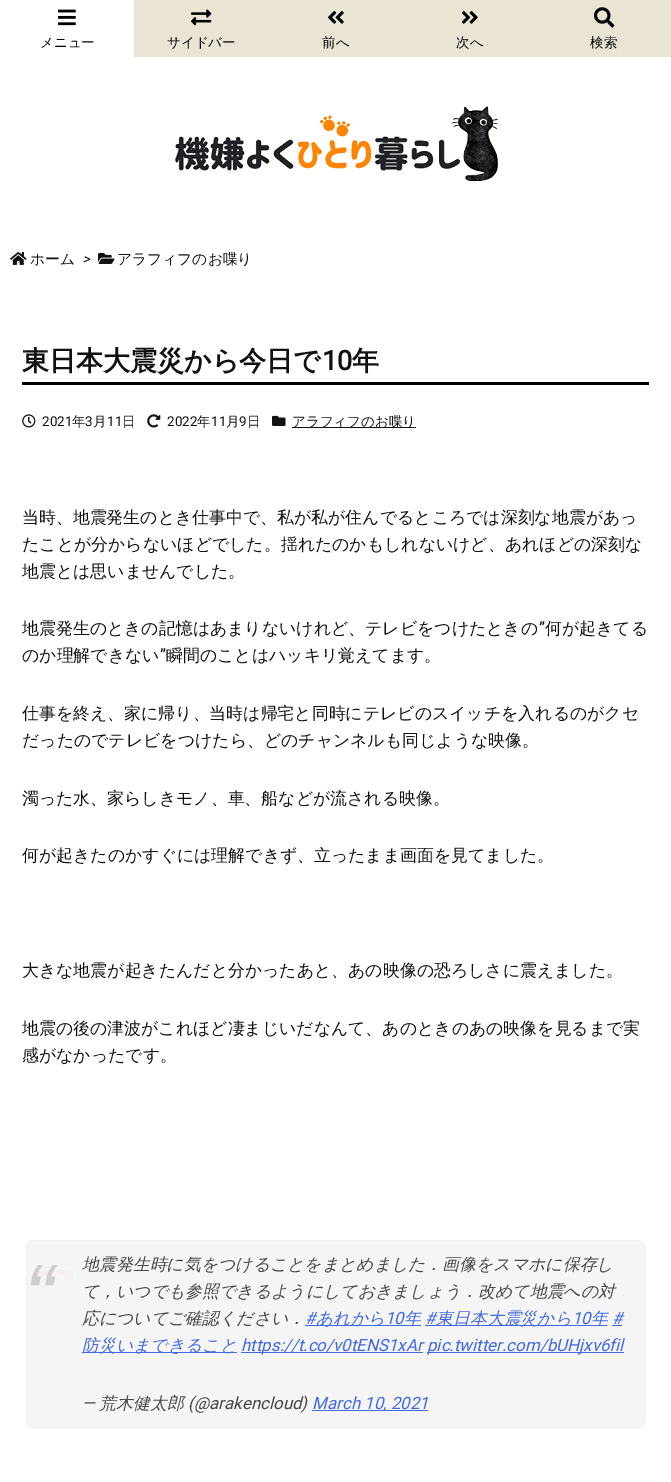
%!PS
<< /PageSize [671 1482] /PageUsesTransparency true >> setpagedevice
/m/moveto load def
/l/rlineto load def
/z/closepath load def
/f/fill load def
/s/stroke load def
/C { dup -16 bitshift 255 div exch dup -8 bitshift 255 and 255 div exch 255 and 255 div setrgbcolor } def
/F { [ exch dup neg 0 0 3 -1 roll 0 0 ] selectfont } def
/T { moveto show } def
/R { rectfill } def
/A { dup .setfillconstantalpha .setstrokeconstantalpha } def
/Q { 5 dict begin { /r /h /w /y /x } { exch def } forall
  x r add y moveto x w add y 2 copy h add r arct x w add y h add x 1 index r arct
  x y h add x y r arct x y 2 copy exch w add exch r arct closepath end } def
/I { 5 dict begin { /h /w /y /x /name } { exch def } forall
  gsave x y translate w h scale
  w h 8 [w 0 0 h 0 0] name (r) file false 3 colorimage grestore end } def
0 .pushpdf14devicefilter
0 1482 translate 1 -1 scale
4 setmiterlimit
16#FFFFFF C
0 0 671 1482 R
16#E9E4D4 C
134 0 537 57 R
(1.rgb) 58 9 18 17 I
/WenQuanYiZenHei-Medium 13.5 F
16#000000 C
(メニュー) 40 47 T
(2.rgb) 191 9 21 17 I
(サイドバー) 167 47 T
(3.rgb) 328 11 16 13 I
(前へ) 322 47 T
(4.rgb) 462 11 16 13 I
(次へ) 456 47 T
(5.rgb) 594 7 21 21 I
(検索) 590 47 T
(6.rgb) 175 106 324 76 I
(7.rgb) 10 252 17 13 I
/WenQuanYiZenHei-Medium 14.75 F
16#111111 C
(ホーム) 30 264 T
/Roboto-Italic 14.75 F
(>) 82 264 T
(8.rgb) 98 253 17 11 I
/WenQuanYiZenHei-Medium 14.75 F
(アラフィフのお喋り) 117 264 T
16#000000 C
22 382 627 3 R
/WenQuanYiZenHei-Bold 27 F
16#111111 C
(東日本大震災から今日で) 22 370 T
/Roboto-Bold 27 F
(10) 322 370 T
/WenQuanYiZenHei-Bold 27 F
(年) 352 370 T
(9.rgb) 22 414 14 14 I
/Roboto-Regular 13.5 F
(2021) 42 426 T
/WenQuanYiZenHei-Medium 13.5 F
(年) 72 426 T
/Roboto-Regular 13.5 F
(3) 85 426 T
/WenQuanYiZenHei-Medium 13.5 F
(月) 93 426 T
/Roboto-Regular 13.5 F
(11) 107 426 T
/WenQuanYiZenHei-Medium 13.5 F
(日) 122 426 T
(10.rgb) 147 414 14 14 I
/Roboto-Regular 13.5 F
(2022) 167 426 T
/WenQuanYiZenHei-Medium 13.5 F
(年) 197 426 T
/Roboto-Regular 13.5 F
(11) 211 426 T
/WenQuanYiZenHei-Medium 13.5 F
(月) 226 426 T
/Roboto-Regular 13.5 F
(9) 239 426 T
/WenQuanYiZenHei-Medium 13.5 F
(日) 247 426 T
(11.rgb) 272 415 14 11 I
292 427 124 1 R
(アラフィフのお喋り) 292 426 T
/WenQuanYiZenHei-Medium 16.9 F
(当時、地震発生のとき仕事中で、私が私が住んでるところでは深刻な地震があっ) 22 523 T
(たことが分からないほどでした。揺れたのかもしれないけど、あれほどの深刻な) 22 550 T
(地震とは思いませんでした。) 22 577 T
(地震発生のときの記憶はあまりないけれど、テレビをつけたときの) 22 634 T
/Roboto-Regular 16.9 F
(”) 539 634 T
/WenQuanYiZenHei-Medium 16.9 F
(何が起きてる) 545 634 T
(のか理解できない) 22 661 T
/Roboto-Regular 16.9 F
(”) 160 661 T
/WenQuanYiZenHei-Medium 16.9 F
(瞬間のことはハッキリ覚えてます。) 166 661 T
(仕事を終え、家に帰り、当時は帰宅と同時にテレビのスイッチを入れるのがクセ) 22 719 T
(だったのでテレビをつけたら、どのチャンネルも同じような映像。) 22 746 T
(濁った水、家らしきモノ、車、船などが流される映像。) 22 804 T
(何が起きたのかすぐには理解できず、立ったまま画面を見てました。) 22 861 T
(大きな地震が起きたんだと分かったあと、あの映像の恐ろしさに震えました。) 22 976 T
(地震の後の津波がこれほど凄まじいだなんて、あのときのあの映像を見るまで実) 22 1034 T
(感がなかったです。) 22 1061 T
16#EFF0F3 C
26.5 1240.5 618 187 6.5 Q s
16#F5F5F5 C
27 1241 617 186 6 Q f
/LiberationSans-Italic 90 F
16#CFCFCF C
(“) 24 1327 T
/WenQuanYiZenHei-MediumItalic 16.9 F
16#464646 C
(地震発生時に気をつけることをまとめました．画像をスマホに保存し) 82 1270 T
(て，いつでも参照できるようにしておきましょう．改めて地震への対) 82 1297 T
(応についてご確認ください．) 82 1324 T
/Roboto-Italic 16.9 F
16#4169E1 C
(#) 305 1324 T
305 1325 116 1 R
/WenQuanYiZenHei-MediumItalic 16.9 F
(あれから) 316 1324 T
/Roboto-Italic 16.9 F
(10) 385 1324 T
/WenQuanYiZenHei-MediumItalic 16.9 F
(年) 404 1324 T
/Roboto-Italic 16.9 F
(#) 425 1324 T
425 1325 182 1 R
/WenQuanYiZenHei-MediumItalic 16.9 F
(東日本大震災から) 436 1324 T
/Roboto-Italic 16.9 F
(10) 572 1324 T
/WenQuanYiZenHei-MediumItalic 16.9 F
(年) 591 1324 T
/Roboto-Italic 16.9 F
(#) 612 1324 T
612 1325 10 1 R
82 1352 155 1 R
/WenQuanYiZenHei-MediumItalic 16.9 F
(防災いまできること) 82 1351 T
241 1352 182 1 R
/Roboto-Italic 16.9 F
(https://t.co/v0tENS1xAr) 241 1351 T
427 1352 197 1 R
(pic.twitter.com/bUHjxv6fil) 427 1351 T
16#F5F0EF C
73 1271 m 0 10 l -19 -10 l z f
0.04 A
16#FF785B C
35 1281 m 0 -10 l 19 0 l z f
1 A
16#464646 C
(—) 82 1409 T
/WenQuanYiZenHei-MediumItalic 16.9 F
(荒木健太郎) 99 1409 T
/Roboto-Italic 16.9 F
(\(@arakencloud\)) 188 1409 T
16#4169E1 C
312 1410 116 1 R
(March 10, 2021) 312 1409 T
.poppdf14devicefilter showpage
